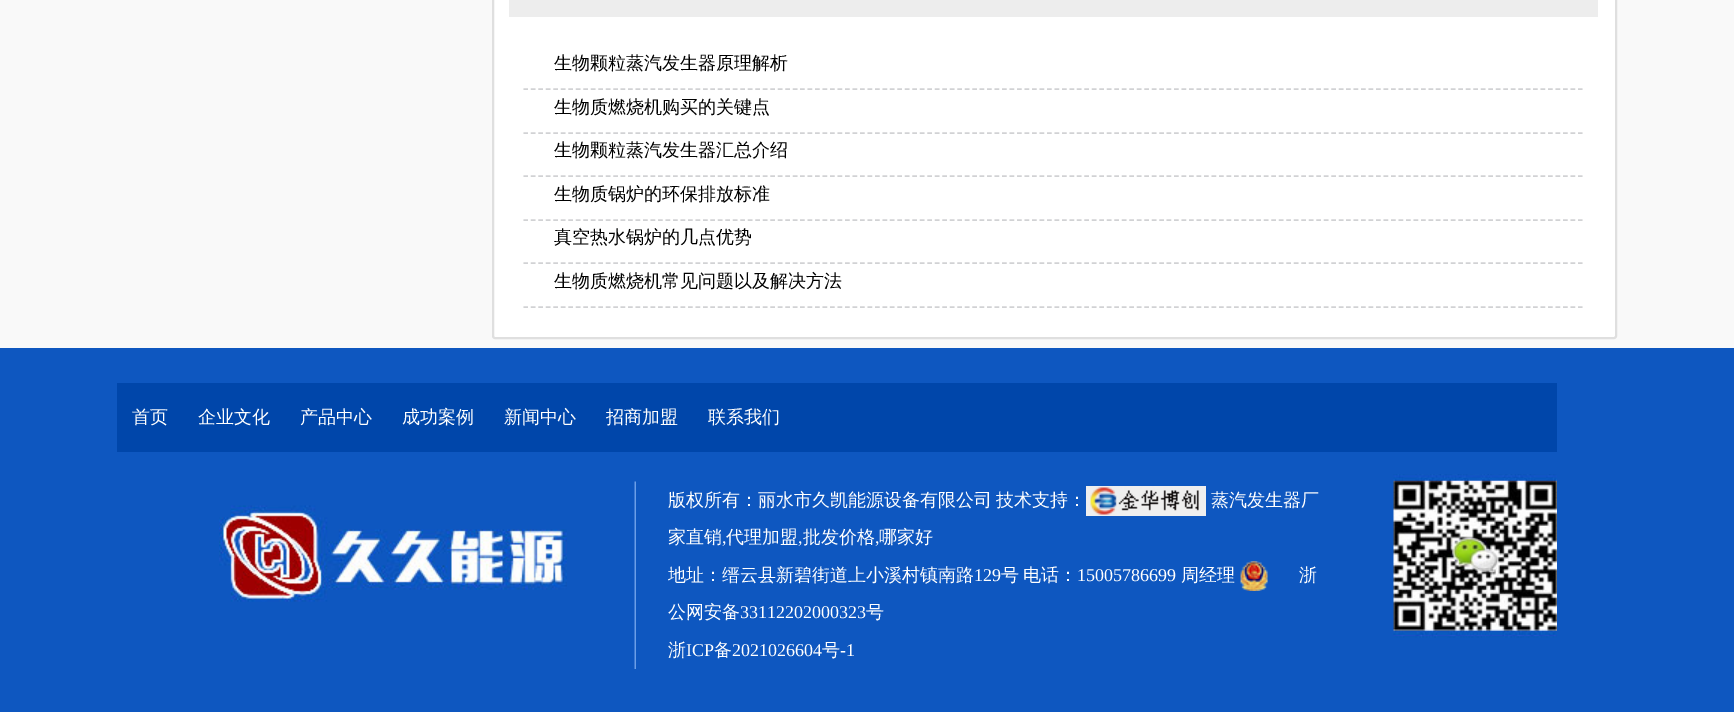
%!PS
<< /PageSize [1734 712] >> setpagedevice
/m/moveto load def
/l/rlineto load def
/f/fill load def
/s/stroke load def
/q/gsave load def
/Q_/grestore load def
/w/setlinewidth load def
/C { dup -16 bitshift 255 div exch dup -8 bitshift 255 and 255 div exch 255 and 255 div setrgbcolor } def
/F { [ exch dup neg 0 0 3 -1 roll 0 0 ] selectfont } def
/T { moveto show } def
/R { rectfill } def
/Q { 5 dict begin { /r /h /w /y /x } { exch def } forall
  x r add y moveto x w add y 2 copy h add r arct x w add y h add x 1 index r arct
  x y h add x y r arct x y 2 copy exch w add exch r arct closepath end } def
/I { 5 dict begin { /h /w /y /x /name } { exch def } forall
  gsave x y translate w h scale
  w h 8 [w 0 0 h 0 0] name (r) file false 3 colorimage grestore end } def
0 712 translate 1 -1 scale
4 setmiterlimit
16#F9F9F9 C
0 0 1734 712 R
16#FFFFFF C
493 -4 1123 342 2 Q q f Q_
16#DFDFDF C
2 w
s
16#EDEDED C
509 0 1089 17 R
16#D1D2D4 C
1.5 w
[4.5 2.98] 0 setdash
523.5 89 m 1059 0 l s
/WenQuanYiZenHei-Medium 18 F
16#000000 C
(生物颗粒蒸汽发生器原理解析) 554 69 T
16#D1D2D4 C
523.5 133 m 1059 0 l s
16#000000 C
(生物质燃烧机购买的关键点) 554 113 T
16#D1D2D4 C
523.5 176 m 1059 0 l s
16#000000 C
(生物颗粒蒸汽发生器汇总介绍) 554 156 T
16#D1D2D4 C
523.5 220 m 1059 0 l s
16#000000 C
(生物质锅炉的环保排放标准) 554 200 T
16#D1D2D4 C
523.5 263 m 1059 0 l s
16#000000 C
(真空热水锅炉的几点优势) 554 243 T
16#D1D2D4 C
523.5 307 m 1059 0 l s
16#000000 C
(生物质燃烧机常见问题以及解决方法) 554 287 T
16#0E57C0 C
0 348 1734 364 R
16#0046AA C
117 383 1440 69 R
16#FFFFFF C
(首页) 132 423 T
(企业文化) 198 423 T
(产品中心) 300 423 T
(成功案例) 402 423 T
(新闻中心) 504 423 T
(招商加盟) 606 423 T
(联系我们) 708 423 T
(1.rgb) 219 505 348 97 I
(2.rgb) 634 481 2 188 I
668 506 m -1 0 32 (版权所有：丽水市久凯能源设备有限公司 技术支持：) widthshow
(3.rgb) 1086 486 120 30 I
(蒸汽发生器厂) 1211 506 T
(家直销) 668 543 T
/LiberationSerif-Regular 18 F
(,) 722 543 T
/WenQuanYiZenHei-Medium 18 F
(代理加盟) 726 543 T
/LiberationSerif-Regular 18 F
(,) 798 543 T
/WenQuanYiZenHei-Medium 18 F
(批发价格) 803 543 T
/LiberationSerif-Regular 18 F
(,) 875 543 T
/WenQuanYiZenHei-Medium 18 F
(哪家好) 879 543 T
(地址：缙云县新碧街道上小溪村镇南路) 668 581 T
/LiberationSerif-Regular 18 F
(129) 974 581 T
/WenQuanYiZenHei-Medium 18 F
(号) 1001 581 T
(电话：) 1023 581 T
/LiberationSerif-Regular 18 F
(15005786699) 1077 581 T
/WenQuanYiZenHei-Medium 18 F
(周经理) 1181 581 T
(4.rgb) 1240 561 28 30 I
(浙) 1299 581 T
(公网安备) 668 618 T
/LiberationSerif-Regular 18 F
(33112202000323) 740 618 T
/WenQuanYiZenHei-Medium 18 F
(号) 866 618 T
(浙) 668 656 T
/LiberationSerif-Regular 18 F
(ICP) 686 656 T
/WenQuanYiZenHei-Medium 18 F
(备) 714 656 T
/LiberationSerif-Regular 18 F
(2021026604) 732 656 T
/WenQuanYiZenHei-Medium 18 F
(号) 822 656 T
/LiberationSerif-Regular 18 F
(-1) 840 656 T
(5.rgb) 1393 474 164 164 I
showpage
